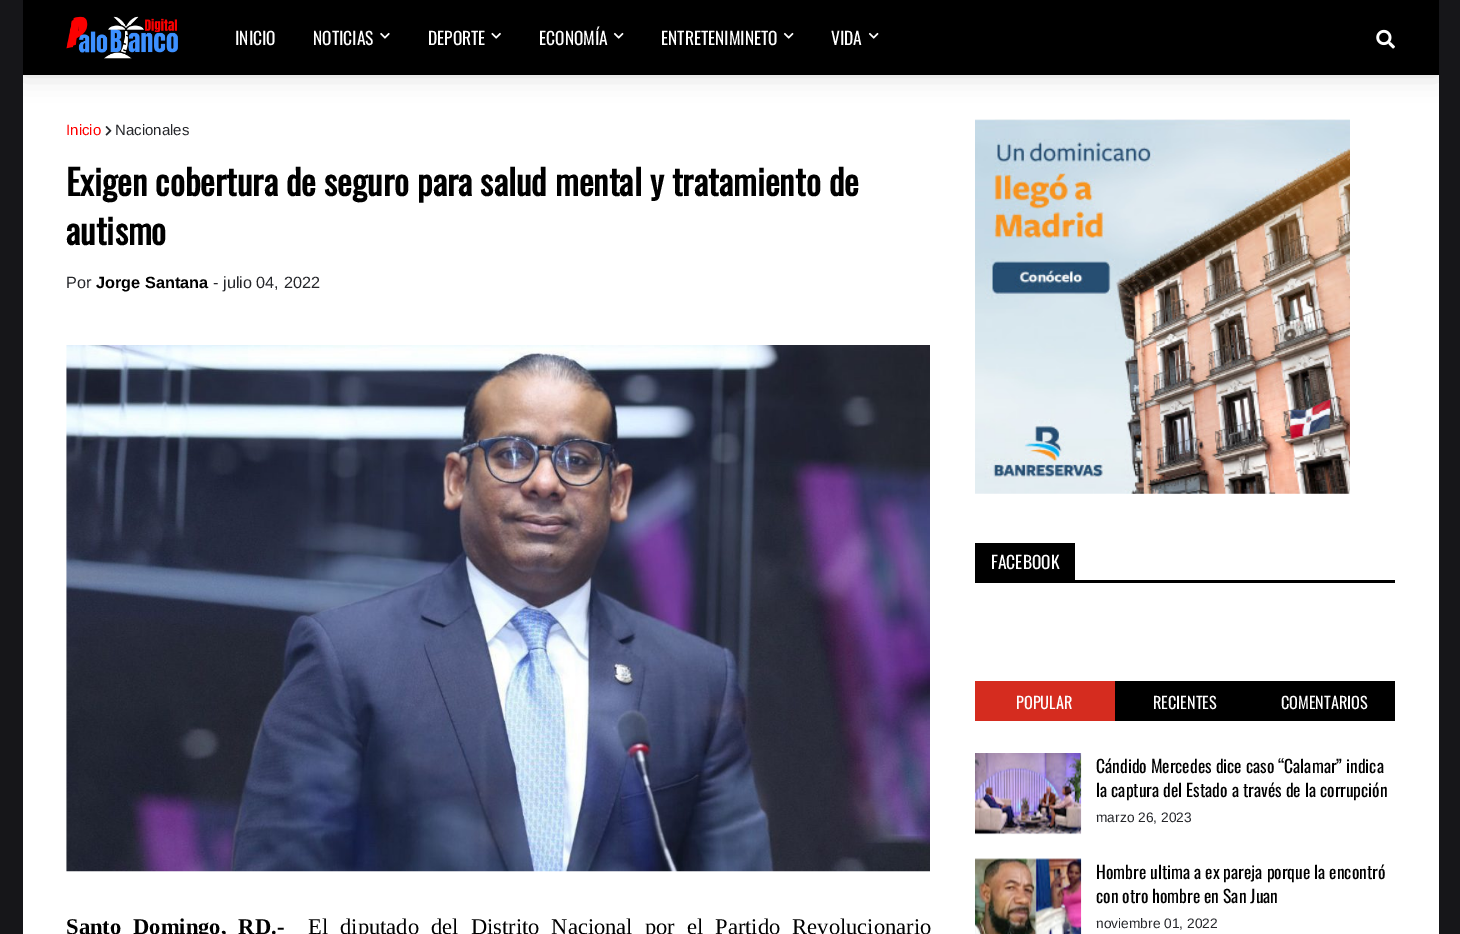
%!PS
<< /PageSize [1460 934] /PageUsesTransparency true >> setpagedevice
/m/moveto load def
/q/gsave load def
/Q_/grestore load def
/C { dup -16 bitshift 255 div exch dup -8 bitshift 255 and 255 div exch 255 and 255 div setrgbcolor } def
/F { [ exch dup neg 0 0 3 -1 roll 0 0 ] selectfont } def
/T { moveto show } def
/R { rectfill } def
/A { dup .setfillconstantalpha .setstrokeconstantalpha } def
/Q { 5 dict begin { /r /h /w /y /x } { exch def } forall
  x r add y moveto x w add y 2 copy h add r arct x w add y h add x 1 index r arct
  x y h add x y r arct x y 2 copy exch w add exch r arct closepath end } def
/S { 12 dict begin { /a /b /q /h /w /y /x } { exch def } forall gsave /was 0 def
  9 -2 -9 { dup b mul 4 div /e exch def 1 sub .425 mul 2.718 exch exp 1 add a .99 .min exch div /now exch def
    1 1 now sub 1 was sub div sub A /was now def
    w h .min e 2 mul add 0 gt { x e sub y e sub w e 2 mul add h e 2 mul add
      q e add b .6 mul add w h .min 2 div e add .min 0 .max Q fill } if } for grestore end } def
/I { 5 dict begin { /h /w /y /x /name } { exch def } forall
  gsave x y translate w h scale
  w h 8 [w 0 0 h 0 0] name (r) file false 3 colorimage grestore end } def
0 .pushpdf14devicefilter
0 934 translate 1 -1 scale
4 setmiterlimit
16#161619 C
0 0 1460 934 R
16#FFFFFF C
23 75 1416 859 R
q
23 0 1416 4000 rectclip
16#000000 C
23 0 1416 75 0 12.5 .15 S
Q_
16#000000 C
23 0 1416 75 R
(1.rgb) 66 16 112 43 I
/Oswald-Regular 17.5 F
16#FFFFFF C
(INICIO) 235 45 T
(NOTICIAS) 313 45 T
(2.rgb) 380 32 10 7 I
(DEPORTE) 428 45 T
(3.rgb) 491 32 10 7 I
(ECONOMÍA) 539 45 T
(4.rgb) 613 32 11 7 I
(ENTRETENIMINETO) 661 45 T
(4.rgb) 783 32 11 7 I
(VIDA) 831 45 T
(4.rgb) 868 32 11 7 I
(5.rgb) 1376 29 19 20 I
/LiberationSans-Regular 15 F
16#FF0000 C
(Inicio) 66 135 T
(6.rgb) 105 126 7 10 I
16#26272B C
(Nacionales) 115 135 T
/Oswald-Bold 35 F
16#000000 C
(Exigen cobertura de seguro para salud mental y tratamiento de) 66 196 T
(autismo) 66 245 T
/LiberationSans-Regular 16.25 F
16#26272B C
(Por) 66 288 T
/LiberationSans-Bold 16.25 F
16#000000 C
(Jorge Santana) 96 288 T
/LiberationSans-Regular 16.25 F
16#26272B C
(-) 213 288 T
(julio 04, 2022) 223 288 T
(7.rgb) 66 345 864 527 I
/LiberationSerif-Bold 22.5 F
16#000000 C
66 934 m 6.5 0 32 (Santo Domingo, RD.-) widthshow
/LiberationSerif-Regular 22.5 F
308 934 m 6.5 0 32 (El diputado del Distrito Nacional por el Partido Revolucionario) widthshow
(8.rgb) 975 119 375 375 I
975 580 420 3 R
975 543 100 37 R
/Oswald-Regular 17.5 F
16#FFFFFF C
(FACEBOOK) 991 569 T
16#000000 C
1115 681 280 40 R
16#D52C1F C
975 681 140 40 R
/Oswald-Regular 16.25 F
16#FFFFFF C
(POPULAR) 1016 709 T
(RECIENTES) 1153 709 T
(COMENTARIOS) 1281 709 T
16#F7F7F7 C
975 833 106 1 R
(9.rgb) 975 753 107 82 I
/Oswald-Regular 17.5 F
16#000000 C
(Cándido Mercedes dice caso “Calamar” indica) 1096 773 T
(la captura del Estado a través de la corrupción) 1096 797 T
/LiberationSans-Regular 13.75 F
16#26272B C
(marzo 26, 2023) 1096 822 T
(10.rgb) 975 858 107 76 I
/Oswald-Regular 17.5 F
16#000000 C
(Hombre ultima a ex pareja porque la encontró) 1096 879 T
(con otro hombre en San Juan) 1096 903 T
/LiberationSans-Regular 13.75 F
16#26272B C
(noviembre 01, 2022) 1096 928 T
.poppdf14devicefilter showpage
